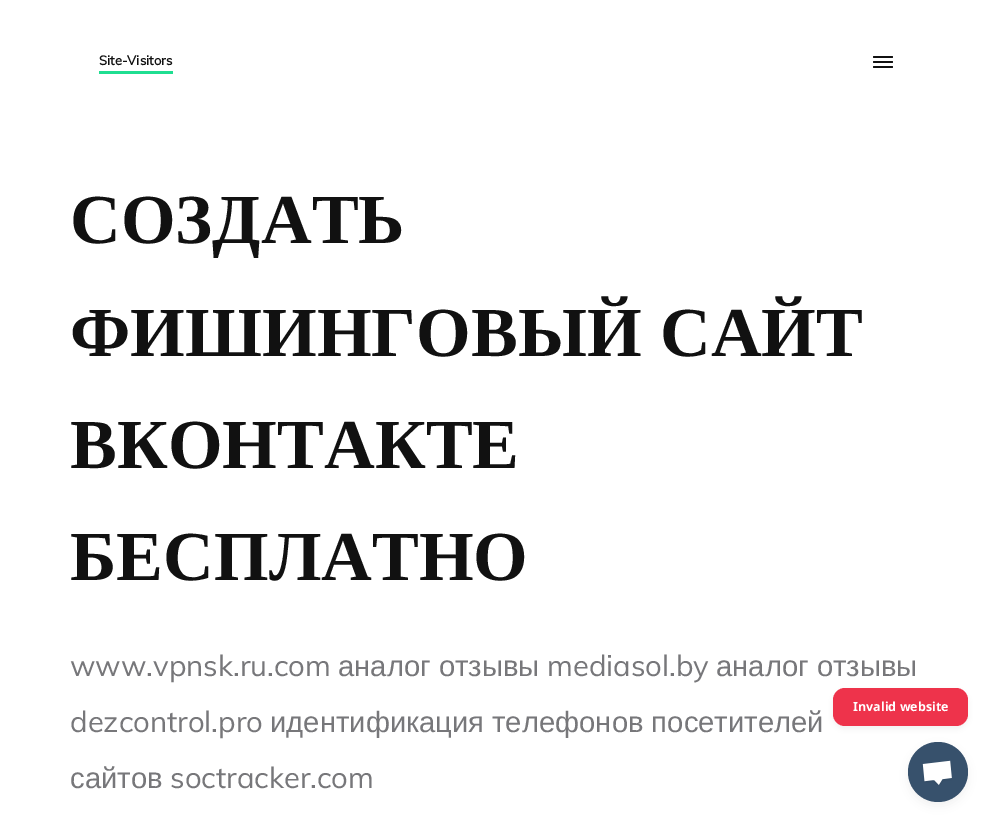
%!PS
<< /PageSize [992 822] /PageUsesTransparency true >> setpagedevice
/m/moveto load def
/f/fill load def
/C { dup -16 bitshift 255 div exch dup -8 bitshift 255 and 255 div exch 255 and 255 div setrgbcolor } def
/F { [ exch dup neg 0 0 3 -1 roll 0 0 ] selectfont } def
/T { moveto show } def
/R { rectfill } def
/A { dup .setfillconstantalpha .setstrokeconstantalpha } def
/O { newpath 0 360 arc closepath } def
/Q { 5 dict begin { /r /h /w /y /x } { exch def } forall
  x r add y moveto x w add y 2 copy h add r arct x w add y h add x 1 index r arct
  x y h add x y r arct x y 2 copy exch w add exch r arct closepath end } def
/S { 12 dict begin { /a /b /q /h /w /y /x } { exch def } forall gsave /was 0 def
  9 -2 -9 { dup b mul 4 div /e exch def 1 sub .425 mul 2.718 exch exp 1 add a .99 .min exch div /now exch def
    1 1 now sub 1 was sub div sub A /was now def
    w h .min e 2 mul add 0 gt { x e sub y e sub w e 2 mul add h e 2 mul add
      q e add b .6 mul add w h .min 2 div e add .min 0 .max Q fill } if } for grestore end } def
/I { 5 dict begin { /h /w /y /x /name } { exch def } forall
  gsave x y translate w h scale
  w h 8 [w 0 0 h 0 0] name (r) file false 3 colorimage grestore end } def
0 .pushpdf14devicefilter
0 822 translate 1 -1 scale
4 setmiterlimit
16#FFFFFF C
0 0 992 822 R
16#1FDE91 C
99 71 74 3 R
/Muli-Bold 13 F
16#111111 C
(Site-Visitors) 99 65 T
873 61 20 2 1 Q f
873 56 20 2 1 Q f
873 66 20 2 1 Q f
/LiberationSerif-Bold 70.25 F
(СОЗДАТЬ) 70 243 T
70 356 m 1 0 32 (ФИШИНГОВЫЙ САЙТ) widthshow
(ВКОНТАКТЕ) 70 468 T
(БЕСПЛАТНО) 70 580 T
/Muli-Regular 29.25 F
16#77777A C
(www.vpnsk.ru.com) 70 676 T
/LiberationSans-Regular 29.25 F
(аналог отзывы) 338 676 T
/Muli-Regular 29.25 F
(mediasol.by) 547 676 T
/LiberationSans-Regular 29.25 F
(аналог отзывы) 716 676 T
/Muli-Regular 29.25 F
(dezcontrol.pro) 70 732 T
/LiberationSans-Regular 29.25 F
(идентификация телефонов посетителей) 270 732 T
(сайтов) 70 788 T
/Muli-Regular 29.25 F
(soctracker.com) 170 788 T
16#000000 C
833 691 135 38 12 3 .06 S
16#EE334B C
833 688 135 38 12 Q f
/NotoSans-Bold 12.5 F
16#FFFFFF C
(Invalid website) 853 711 T
16#000000 C
908 746 60 60 30 5 .05 S
16#37516C C
938 772 30 O f
(1.rgb) 922 760 30 25 I
.poppdf14devicefilter showpage
